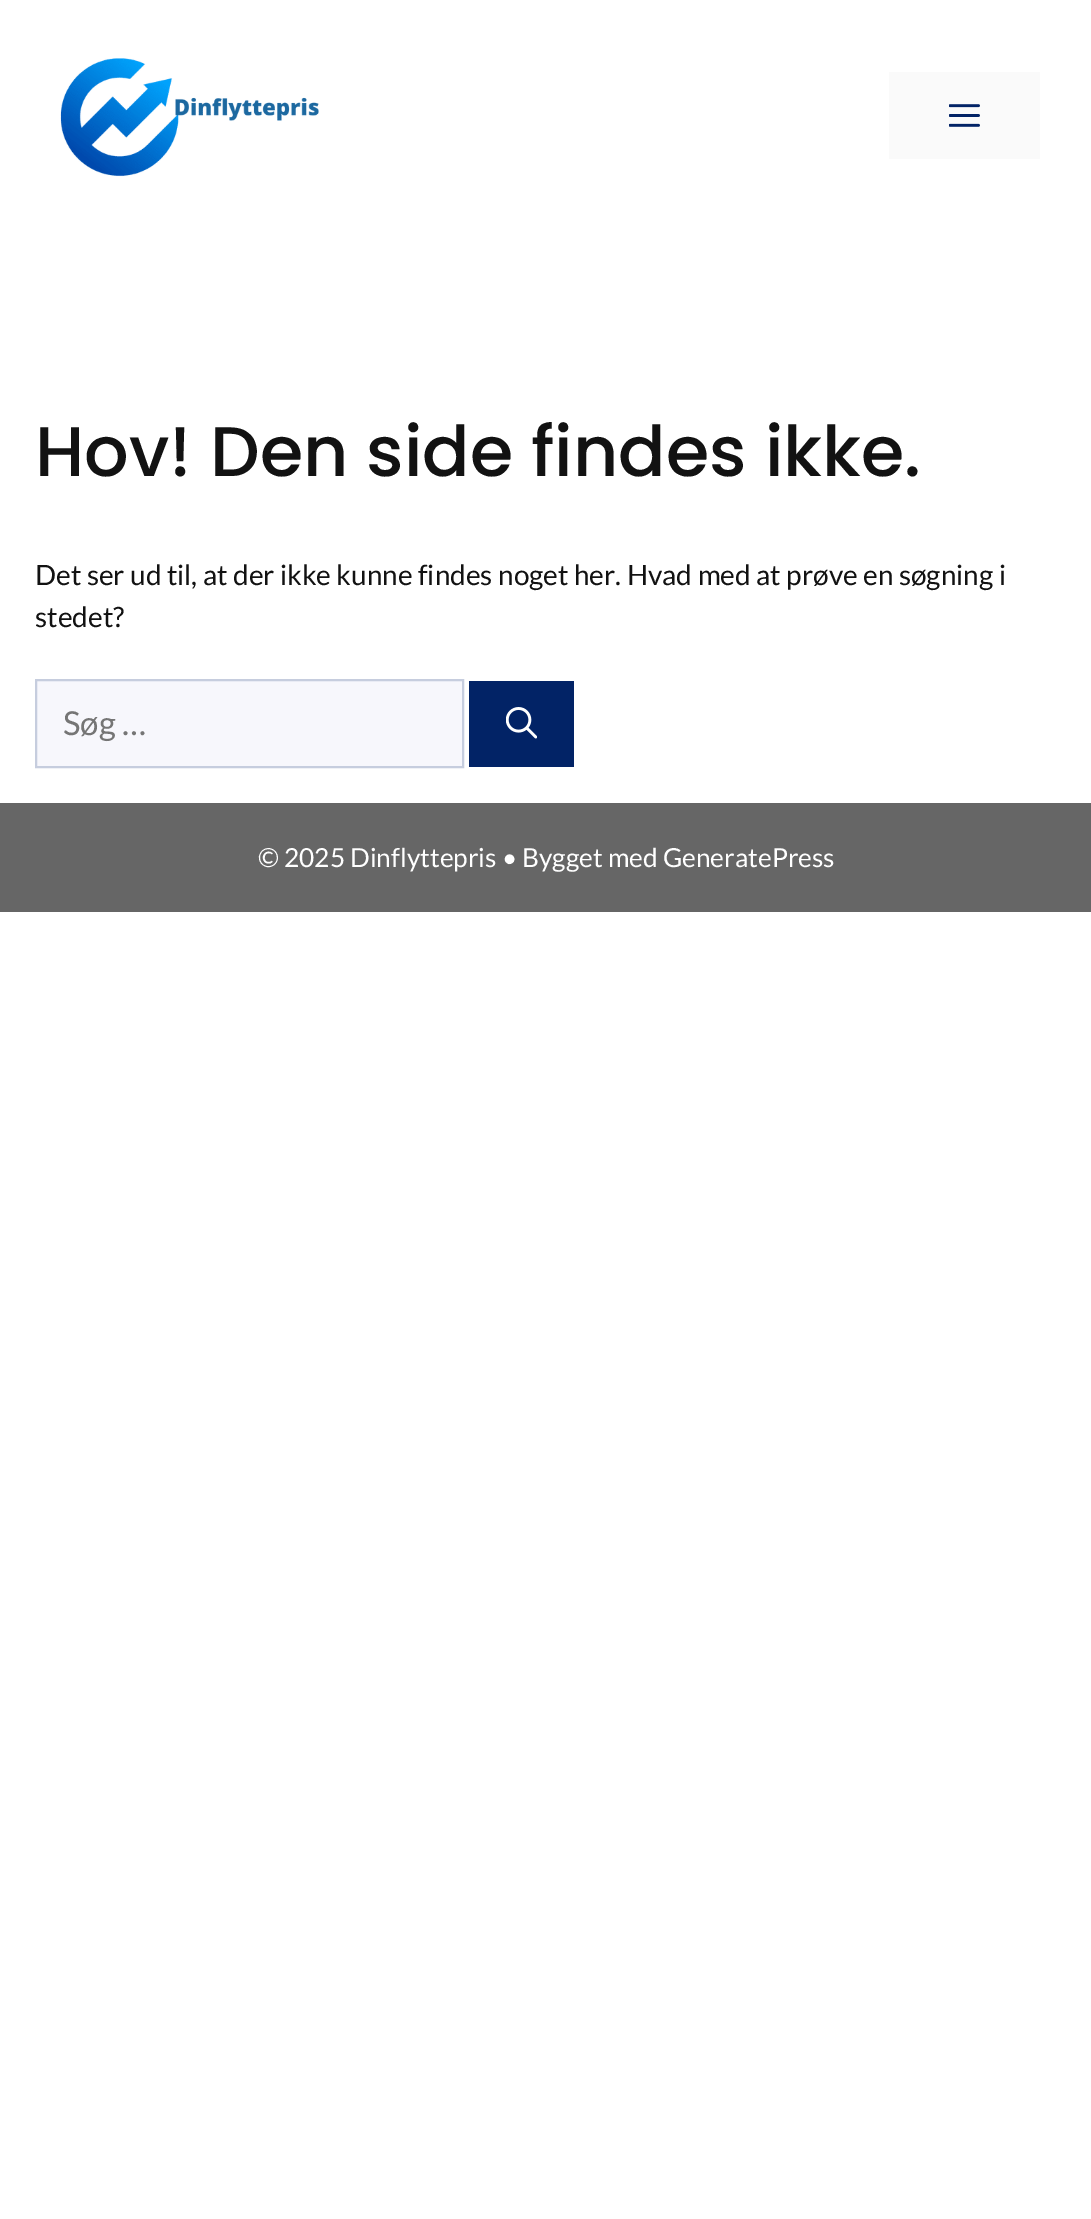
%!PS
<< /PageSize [1091 2219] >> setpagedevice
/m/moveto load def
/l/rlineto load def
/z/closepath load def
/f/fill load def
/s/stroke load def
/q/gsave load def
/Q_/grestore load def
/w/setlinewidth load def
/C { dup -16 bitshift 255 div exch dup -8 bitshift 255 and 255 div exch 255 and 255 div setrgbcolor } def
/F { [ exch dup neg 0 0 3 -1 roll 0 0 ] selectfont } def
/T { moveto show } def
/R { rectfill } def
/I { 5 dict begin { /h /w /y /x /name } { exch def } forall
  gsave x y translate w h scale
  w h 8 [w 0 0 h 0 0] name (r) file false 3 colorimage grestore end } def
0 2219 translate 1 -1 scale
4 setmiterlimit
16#FFFFFF C
0 0 1091 2219 R
(1.rgb) 60 58 259 119 I
16#FAFAFA C
889 72 151 87 R
(2.rgb) 949 104 31 23 I
/Poppins-Medium 70 F
16#121212 C
(Hov! Den side findes ikke.) 35 476 T
/Lato-Regular 28 F
(Det ser ud til, at der ikke kunne findes noget her. Hvad med at prøve en søgning i) 35 585 T
(stedet?) 35 627 T
16#F7F7FC C
36 680 m 427 0 l 0 87 l -427 0 l z q f Q_
16#C6CDDE C
2 w
s
/Lato-Regular 33 F
16#757575 C
(Søg …) 63 735 T
16#022366 C
469 681 105 86 R
(3.rgb) 506 707 31 32 I
16#666666 C
0 803 1091 109 R
/Lato-Regular 26.25 F
16#FFFFFF C
(© 2025 Dinflyttepris • Bygget med GeneratePress) 258 867 T
showpage
